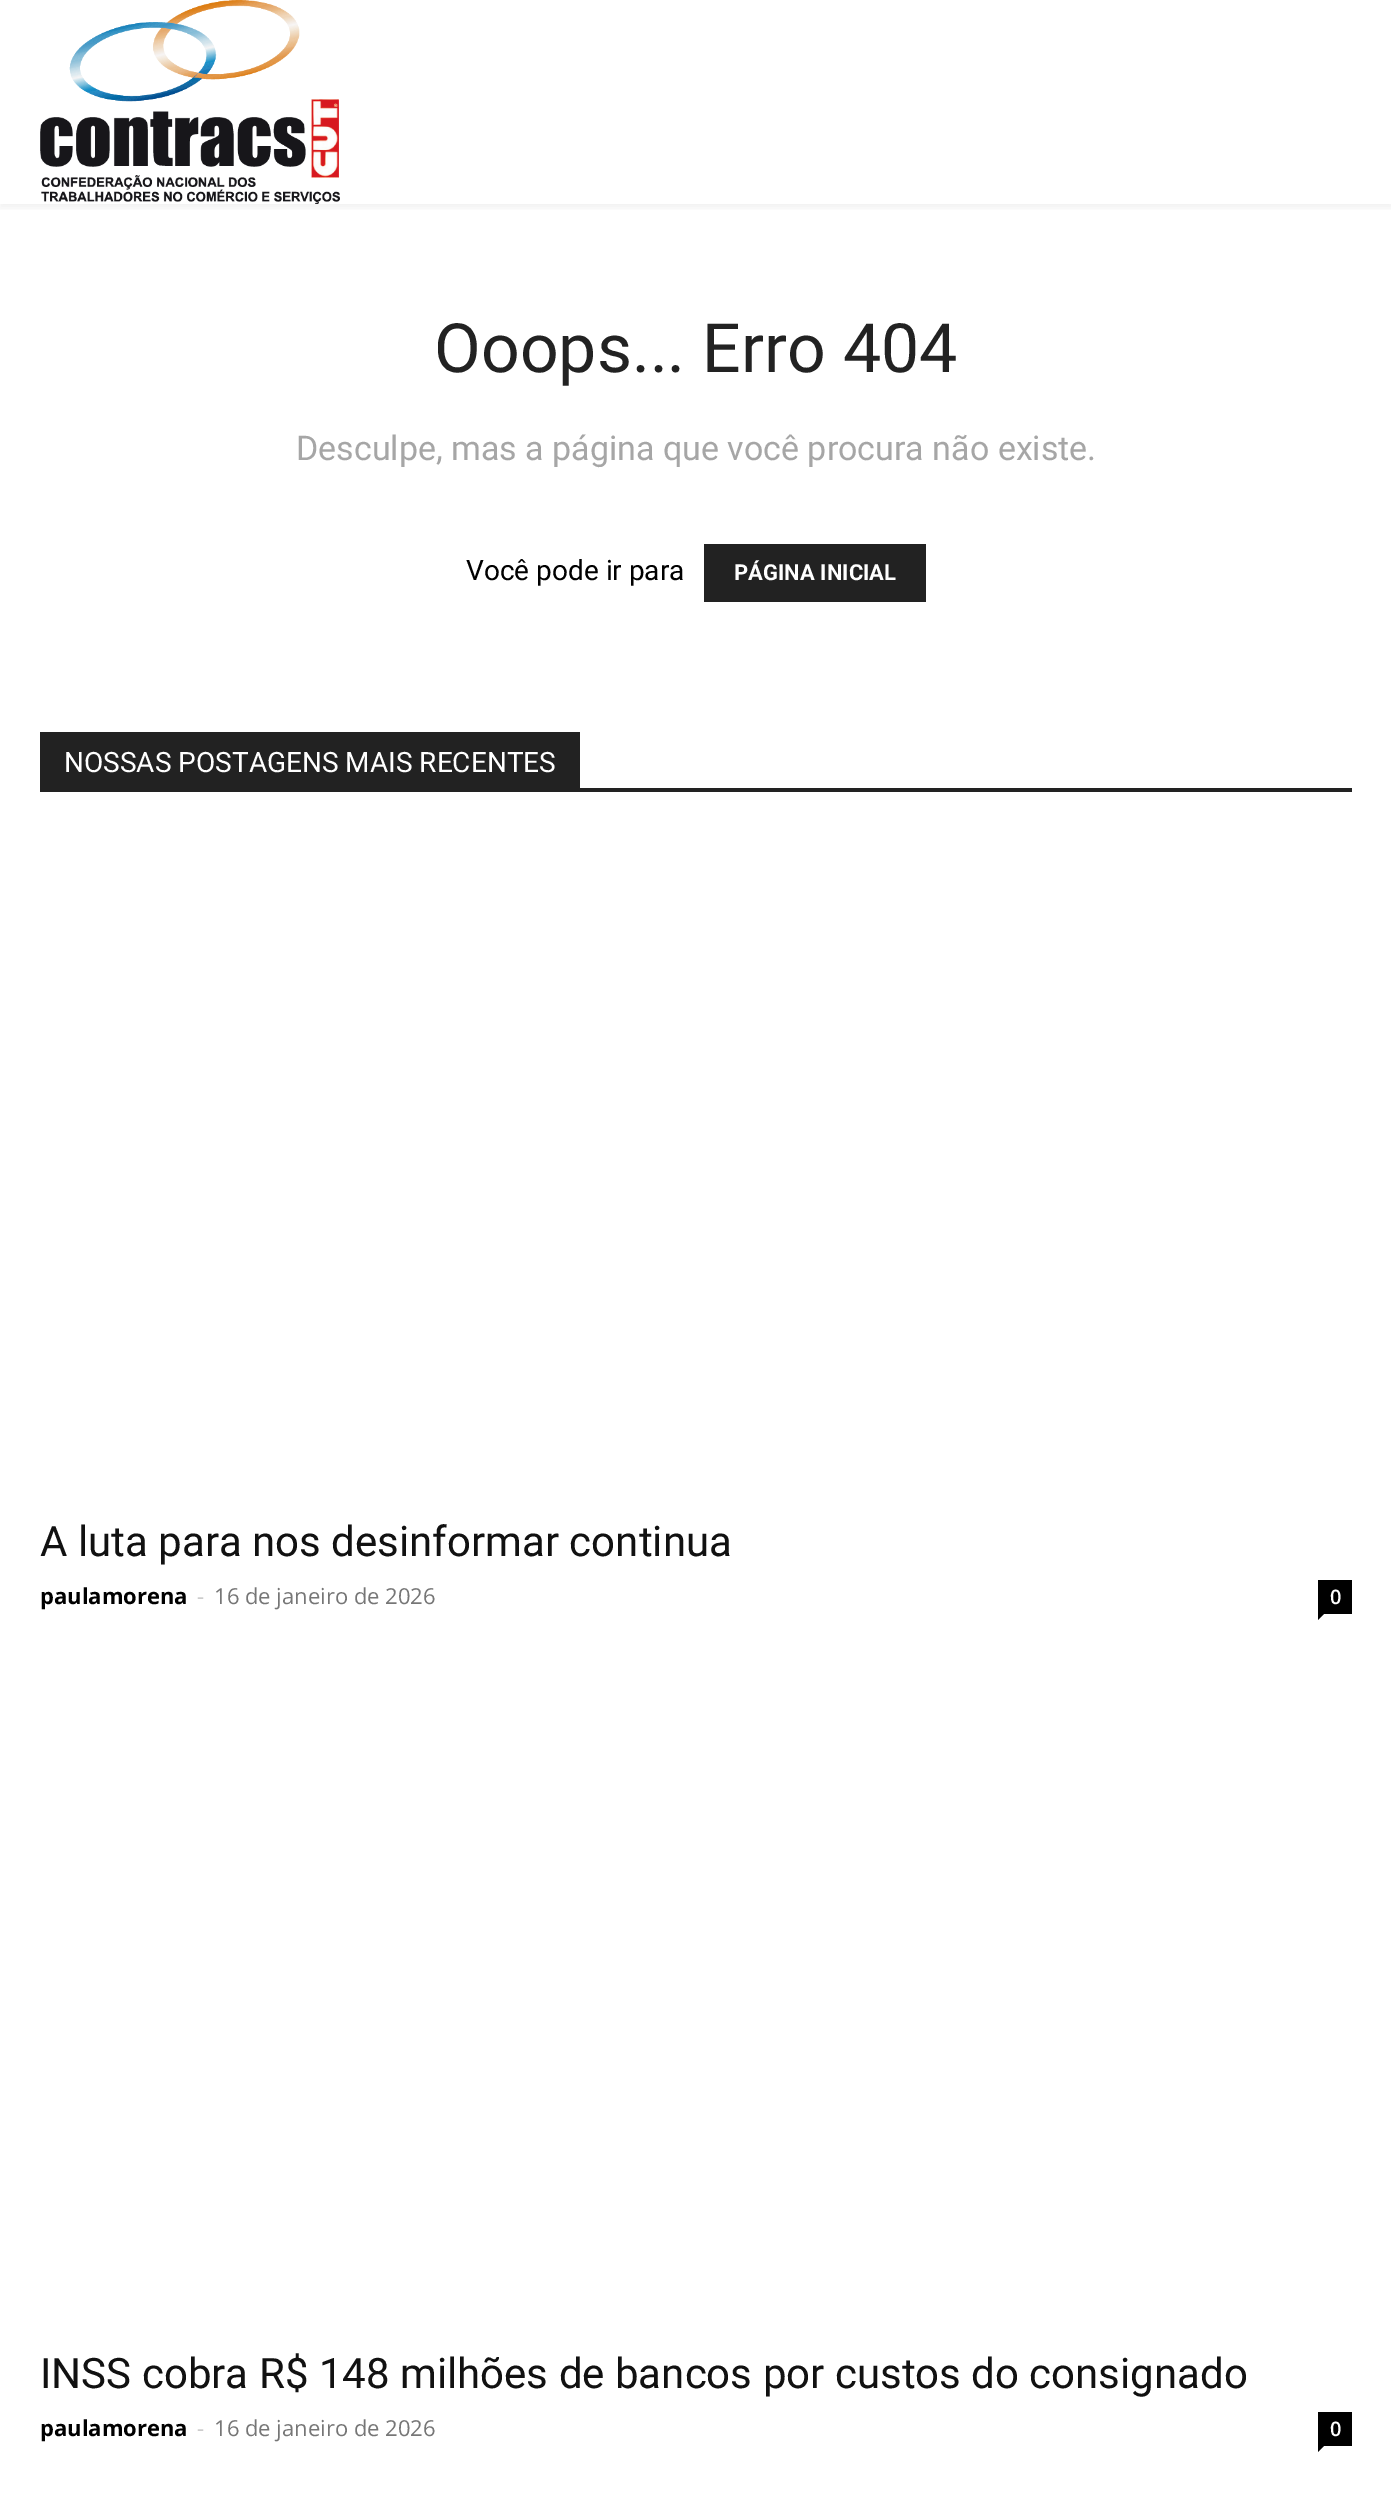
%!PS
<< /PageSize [1391 2517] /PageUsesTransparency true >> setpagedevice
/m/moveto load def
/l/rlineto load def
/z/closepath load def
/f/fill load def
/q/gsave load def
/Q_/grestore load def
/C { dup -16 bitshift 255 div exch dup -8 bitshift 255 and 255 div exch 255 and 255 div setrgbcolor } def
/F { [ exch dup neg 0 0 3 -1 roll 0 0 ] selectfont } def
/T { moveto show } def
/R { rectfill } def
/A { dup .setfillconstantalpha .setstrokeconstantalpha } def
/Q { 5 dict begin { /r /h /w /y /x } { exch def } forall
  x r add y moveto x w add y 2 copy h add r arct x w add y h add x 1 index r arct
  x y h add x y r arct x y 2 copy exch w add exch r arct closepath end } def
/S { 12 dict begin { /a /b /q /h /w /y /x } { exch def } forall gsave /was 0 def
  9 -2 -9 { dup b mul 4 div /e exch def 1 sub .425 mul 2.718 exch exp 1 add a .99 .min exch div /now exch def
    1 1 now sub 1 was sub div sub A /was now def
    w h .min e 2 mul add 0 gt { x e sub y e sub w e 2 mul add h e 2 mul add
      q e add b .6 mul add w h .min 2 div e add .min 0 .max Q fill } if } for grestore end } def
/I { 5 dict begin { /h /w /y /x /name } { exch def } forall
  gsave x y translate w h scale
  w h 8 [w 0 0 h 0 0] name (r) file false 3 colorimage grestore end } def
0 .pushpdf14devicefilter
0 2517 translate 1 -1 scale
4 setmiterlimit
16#FFFFFF C
0 0 1391 2517 R
(1.rgb) 40 0 300 204 I
q
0 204 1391 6 rectclip
16#000000 C
0 4 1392 204 0 4 .06 S
Q_
/Roboto-Regular 68 F
16#222222 C
(Ooops... Erro 404) 434 372 T
/Roboto-Regular 34 F
16#A6A6A6 C
(Desculpe, mas a página que você procura não existe.) 296 460 T
/Roboto-Regular 28 F
16#000000 C
(Você pode ir para) 466 580 T
16#222222 C
704 544 222 58 R
/Roboto-Bold 22 F
16#FFFFFF C
(PÁGINA INICIAL) 734 580 T
16#222222 C
40 788 1312 4 R
40 732 540 56 R
/Roboto-Regular 28 F
16#FFFFFF C
(NOSSAS POSTAGENS MAIS RECENTES) 64 772 T
/Roboto-Regular 42 F
16#111111 C
(A luta para nos desinformar continua) 40 1556 T
/OpenSans-Bold 22 F
16#000000 C
(paulamorena) 40 1604 T
/OpenSans-Regular 22 F
16#CCCCCC C
(-) 197 1604 T
16#767676 C
(16 de janeiro de 2026) 214 1604 T
16#000000 C
1318 1580 34 34 R
/OpenSans-SemiBold 20 F
16#FFFFFF C
(0) 1330 1604 T
16#000000 C
1318 1614 m 6 0 l -6 6 l z f
/Roboto-Regular 42 F
16#111111 C
(INSS cobra R$ 148 milhões de bancos por custos do consignado) 40 2388 T
/OpenSans-Bold 22 F
16#000000 C
(paulamorena) 40 2436 T
/OpenSans-Regular 22 F
16#CCCCCC C
(-) 197 2436 T
16#767676 C
(16 de janeiro de 2026) 214 2436 T
16#000000 C
1318 2412 34 34 R
/OpenSans-SemiBold 20 F
16#FFFFFF C
(0) 1330 2436 T
16#000000 C
1318 2446 m 6 0 l -6 6 l z f
.poppdf14devicefilter showpage
